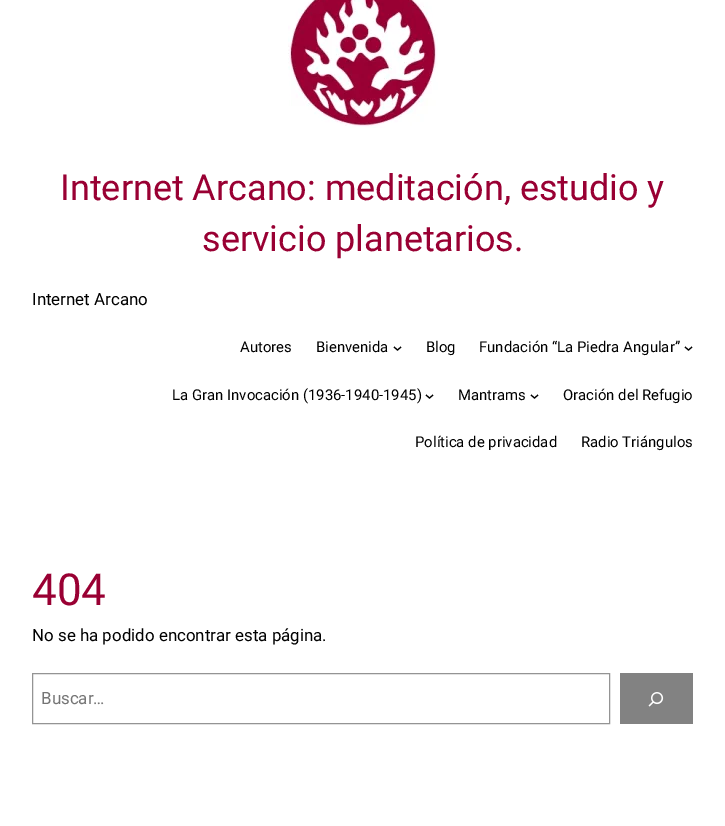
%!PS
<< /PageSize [725 826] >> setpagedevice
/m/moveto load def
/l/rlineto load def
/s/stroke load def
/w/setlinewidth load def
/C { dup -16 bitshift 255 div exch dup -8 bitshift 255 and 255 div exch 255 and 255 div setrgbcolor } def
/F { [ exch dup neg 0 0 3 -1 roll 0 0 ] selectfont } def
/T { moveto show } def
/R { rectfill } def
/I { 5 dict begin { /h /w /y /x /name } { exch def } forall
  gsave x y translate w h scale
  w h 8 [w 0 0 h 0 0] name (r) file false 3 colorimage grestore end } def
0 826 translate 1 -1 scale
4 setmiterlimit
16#FFFFFF C
0 0 725 826 R
(1.rgb) 288 0 150 128 I
/Roboto-Regular 36 F
16#990033 C
(Internet Arcano: meditación, estudio y) 60 200 T
(servicio planetarios.) 202 251 T
/Roboto-Regular 16.9 F
16#000000 C
(Internet Arcano) 32 305 T
/Roboto-Regular 14.9 F
(Autores) 240 352 T
(Bienvenida) 316 352 T
1.1 w
394 347 m 3.5 3 l 3.5 -3 l s
(Blog) 426 352 T
(Fundación “La Piedra Angular”) 479 352 T
685 347 m 3.5 3 l 3.5 -3 l s
(La Gran Invocación \(1936-1940-1945\)) 172 400 T
426 395 m 3.5 3 l 3.5 -3 l s
(Mantrams) 458 400 T
531 395 m 3.5 3 l 3.5 -3 l s
(Oración del Refugio) 563 400 T
(Política de privacidad) 415 447 T
(Radio Triángulos) 581 447 T
/Roboto-Regular 44 F
16#990033 C
(404) 32 605 T
/Roboto-Regular 16.9 F
16#000000 C
(No se ha podido encontrar esta página.) 32 641 T
16#949494 C
1 w
32.5 673.5 577 50 rectstroke
16#757575 C
(Buscar…) 41 704 T
16#828282 C
620 673 73 51 R
(2.rgb) 648 692 16 15 I
showpage
